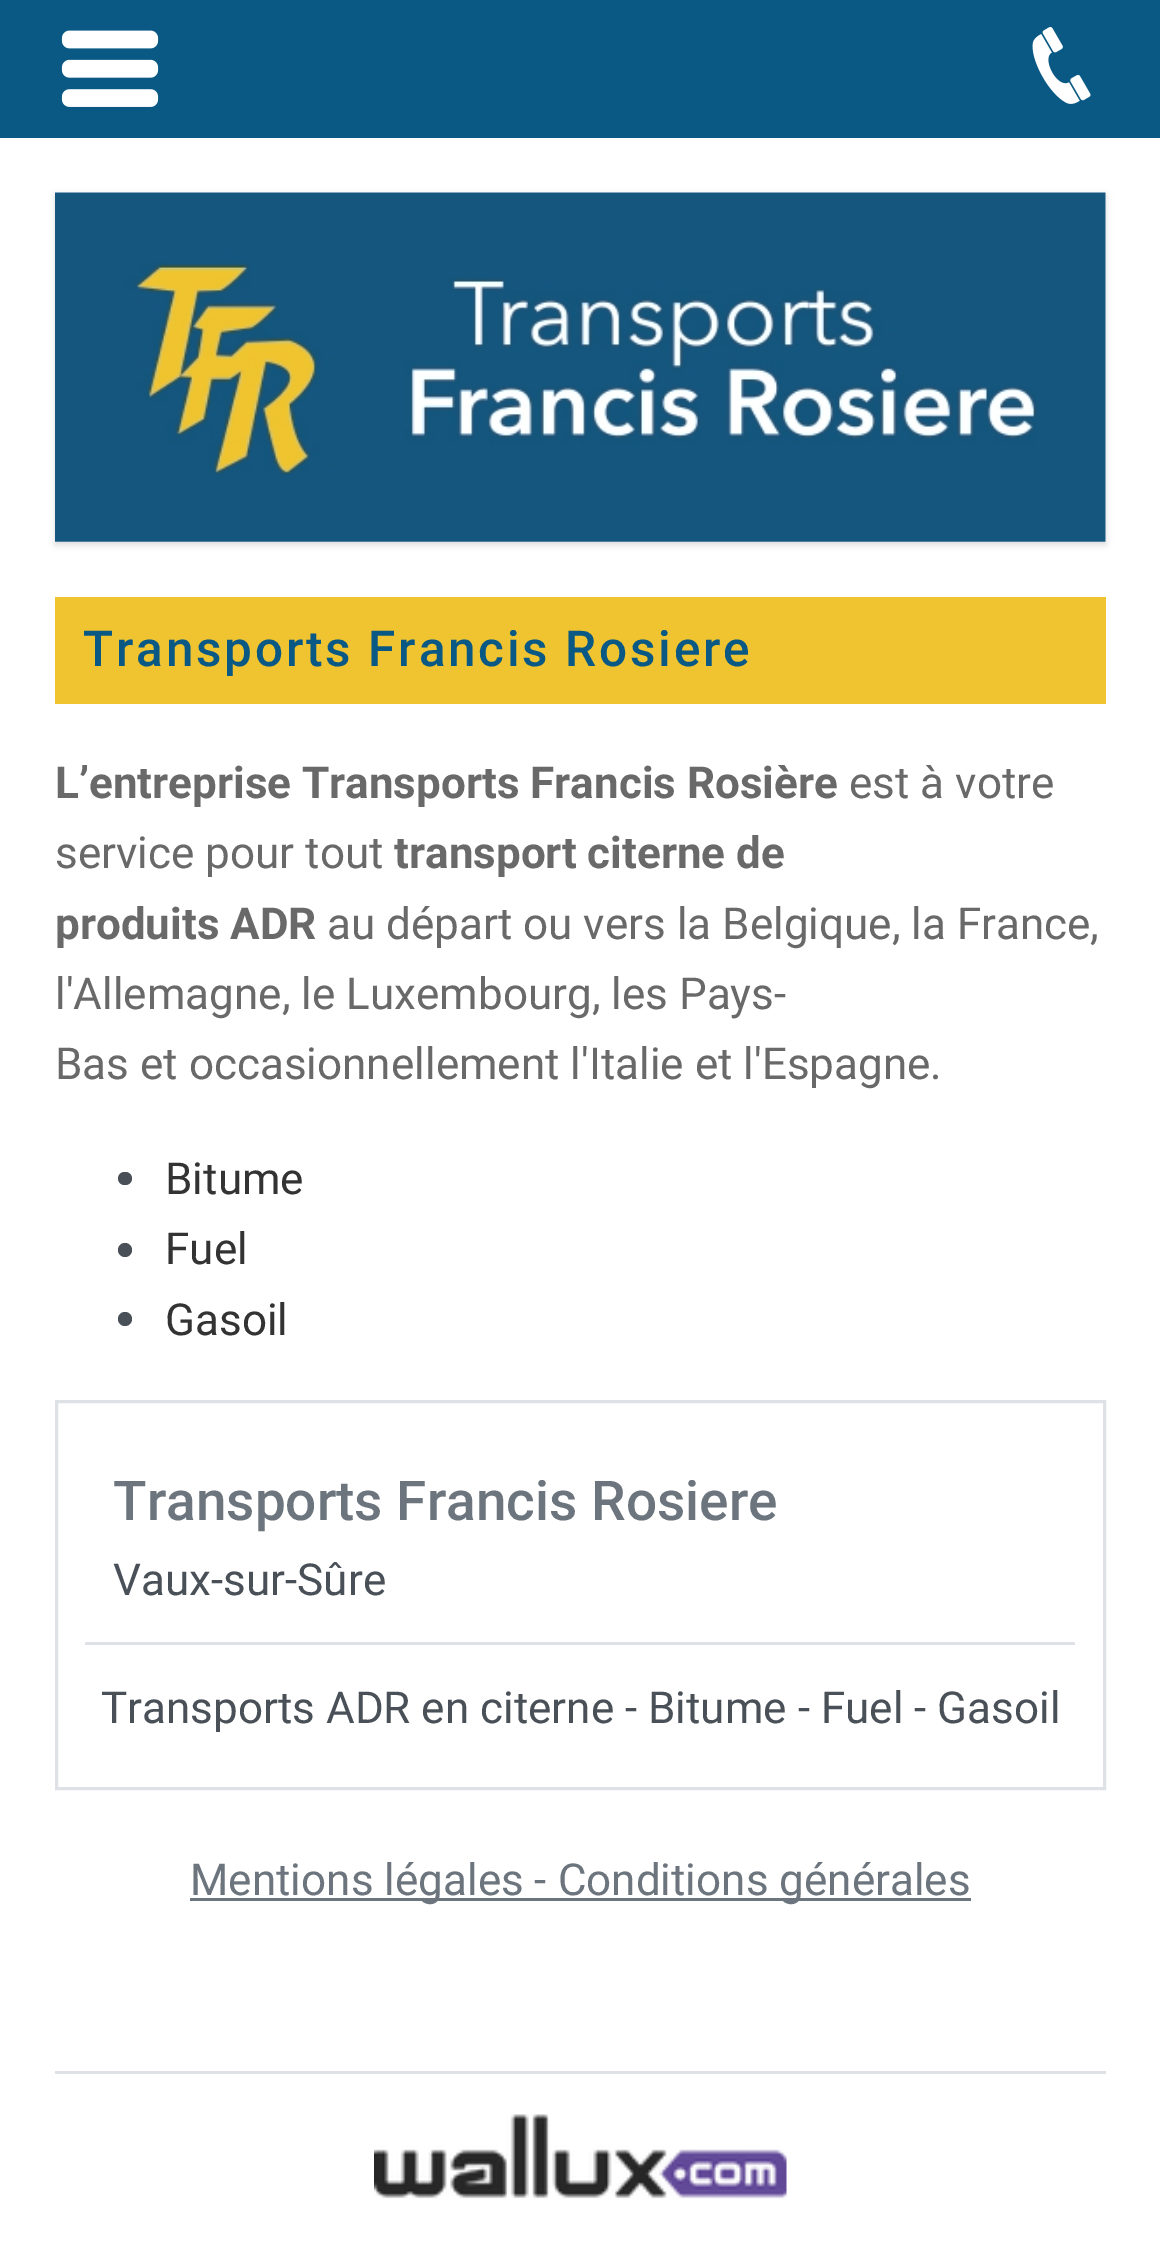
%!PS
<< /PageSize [1160 2266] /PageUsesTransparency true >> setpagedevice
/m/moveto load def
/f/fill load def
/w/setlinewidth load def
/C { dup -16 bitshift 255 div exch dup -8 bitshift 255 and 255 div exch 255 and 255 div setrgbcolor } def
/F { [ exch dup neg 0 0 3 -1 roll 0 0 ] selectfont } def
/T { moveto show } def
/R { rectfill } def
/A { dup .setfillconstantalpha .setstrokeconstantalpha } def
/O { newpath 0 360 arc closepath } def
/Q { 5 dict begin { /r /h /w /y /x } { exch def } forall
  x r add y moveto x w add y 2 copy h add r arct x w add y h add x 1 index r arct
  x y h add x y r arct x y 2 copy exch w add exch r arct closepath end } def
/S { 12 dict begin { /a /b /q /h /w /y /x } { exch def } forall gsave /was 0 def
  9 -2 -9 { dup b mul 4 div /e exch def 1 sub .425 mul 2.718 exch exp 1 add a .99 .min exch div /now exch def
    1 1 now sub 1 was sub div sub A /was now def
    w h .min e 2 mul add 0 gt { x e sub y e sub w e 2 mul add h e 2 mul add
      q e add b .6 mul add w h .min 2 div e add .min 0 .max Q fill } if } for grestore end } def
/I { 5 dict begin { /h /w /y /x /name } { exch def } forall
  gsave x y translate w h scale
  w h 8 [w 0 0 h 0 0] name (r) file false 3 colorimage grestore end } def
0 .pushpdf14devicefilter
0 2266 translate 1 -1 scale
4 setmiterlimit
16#FFFFFF C
0 0 1160 2266 R
16#0A5984 C
0 0 1160 138 R
(1.rgb) 61 30 98 77 I
(2.rgb) 1032 27 59 77 I
16#000000 C
55 195 1051 350 0 3.5 .14 S
(3.rgb) 55 192 1051 350 I
16#F0C330 C
55 597 1051 107 R
/Roboto-Medium 49.5 F
16#0A5984 C
83 666 m 2.75 0 (Transports Francis Rosiere) ashow
/Roboto-Bold 44 F
16#696969 C
(L’entreprise Transports Francis Rosière) 55 798 T
/Roboto-Regular 44 F
(est à votre) 849 798 T
(service pour tout) 55 868 T
/Roboto-Bold 44 F
(transport citerne de) 394 868 T
(produits ADR) 55 939 T
/Roboto-Regular 44 F
(au départ ou vers la Belgique, la France,) 327 939 T
(l'Allemagne, le Luxembourg, les Pays-) 55 1009 T
(Bas et occasionnellement l'Italie et l'Espagne.) 55 1079 T
16#495057 C
118 1172 14 13 6.5 Q f
16#333333 C
(Bitume) 165 1194 T
16#495057 C
125 1250 7 O f
16#333333 C
(Fuel) 165 1264 T
16#495057 C
125 1319 7 O f
16#333333 C
(Gasoil) 165 1335 T
16#DEE2E6 C
3 w
56.5 1401.5 1048 387 rectstroke
/Roboto-Medium 55 F
16#6C757D C
(Transports Francis Rosiere) 113 1520 T
/Roboto-Regular 44 F
16#495057 C
(Vaux-sur-Sûre) 113 1595 T
16#DEE2E6 C
85 1642 990 3 R
16#495057 C
(Transports ADR en citerne - Bitume - Fuel - Gasoil) 101 1723 T
16#6C757D C
190 1898 781 3 R
(Mentions légales - Conditions générales) 190 1895 T
16#DEE2E6 C
55 2071 1051 3 R
(4.rgb) 374 2114 413 85 I
.poppdf14devicefilter showpage
